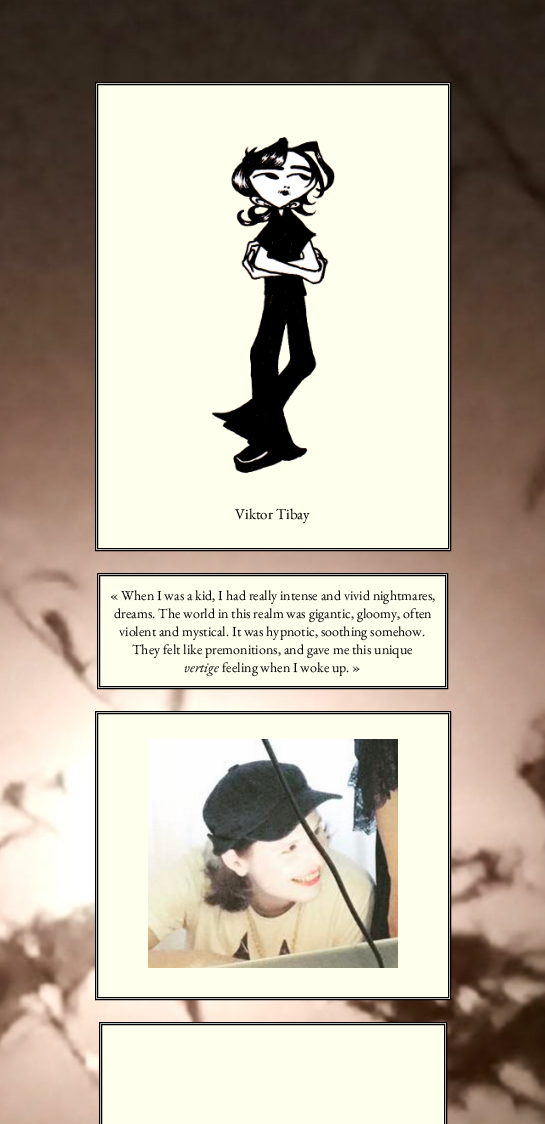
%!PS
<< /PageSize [545 1124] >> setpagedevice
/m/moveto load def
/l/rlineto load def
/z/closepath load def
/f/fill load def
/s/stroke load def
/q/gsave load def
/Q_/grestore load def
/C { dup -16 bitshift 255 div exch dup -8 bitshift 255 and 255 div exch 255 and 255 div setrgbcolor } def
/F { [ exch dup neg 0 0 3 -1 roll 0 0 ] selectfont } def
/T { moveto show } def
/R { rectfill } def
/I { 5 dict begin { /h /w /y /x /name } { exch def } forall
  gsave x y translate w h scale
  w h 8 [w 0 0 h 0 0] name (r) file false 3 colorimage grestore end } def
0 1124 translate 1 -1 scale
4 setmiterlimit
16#FFFFFF C
0 0 545 1124 R
(1.rgb) 0 0 545 1124 I
16#FFFFEE C
95.5 82.5 m 355 0 l 0 468 l -355 0 l z q f Q_
16#000000 C
s
97.5 84.5 351 464 rectstroke
(2.rgb) 211 136 124 338 I
/EBGaramond-Regular 15 F
(Viktor Tibay) 235 519 T
16#FFFFEE C
97.5 573.5 m 350 0 l 0 115 l -350 0 l z q f Q_
16#000000 C
s
99.5 575.5 346 111 rectstroke
/EBGaramond-Regular 14 F
(« When I was a kid, I had really intense and vivid nightmares,) 110 600 T
(dreams. The world in this realm was gigantic, gloomy, often) 114 618 T
(violent and mystical. It was hypnotic, soothing somehow.) 119 636 T
(They felt like premonitions, and gave me this unique) 132 654 T
/EBGaramond-Italic 14 F
(vertige) 184 672 T
/EBGaramond-Regular 14 F
(feeling when I woke up. ») 222 672 T
16#FFFFEE C
95.5 711.5 m 355 0 l 0 288 l -355 0 l z q f Q_
16#000000 C
s
97.5 713.5 351 284 rectstroke
(3.rgb) 148 739 250 229 I
16#FFFFEE C
99.5 1022.5 m 347 0 l 0 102 l -347 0 l z q f Q_
16#000000 C
s
101.5 1024.5 343 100 rectstroke
showpage
